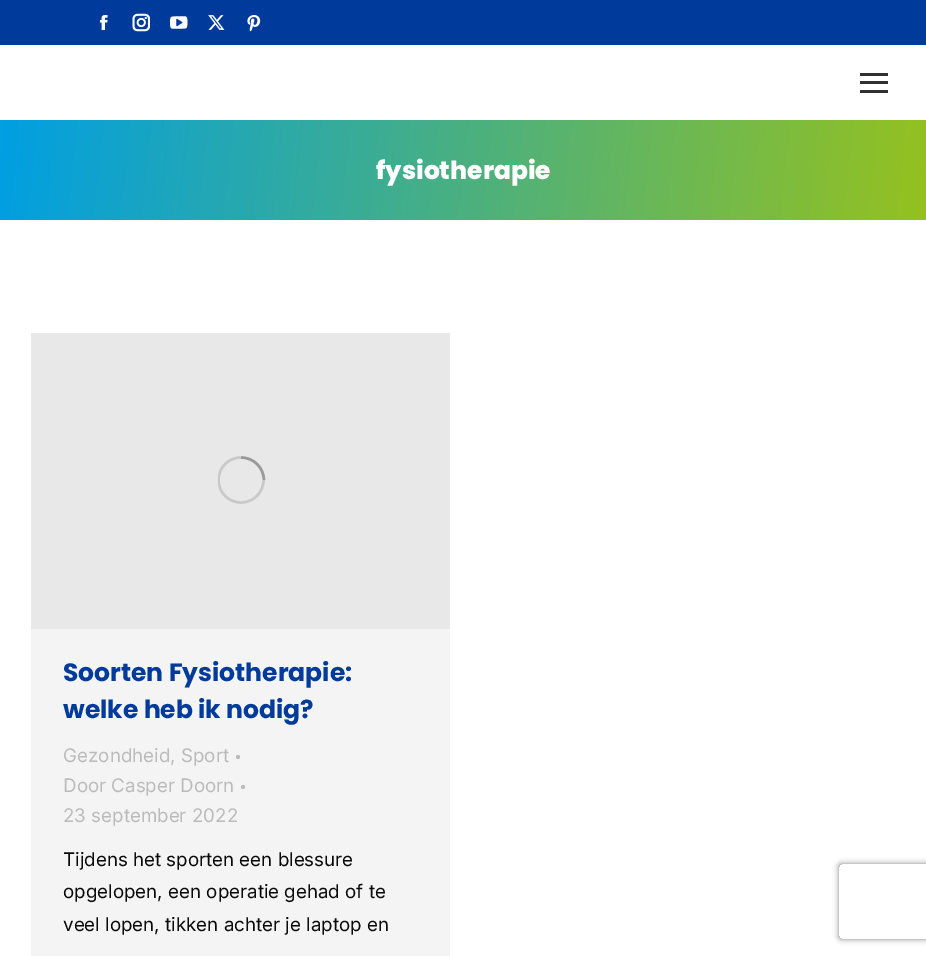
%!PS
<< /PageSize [926 956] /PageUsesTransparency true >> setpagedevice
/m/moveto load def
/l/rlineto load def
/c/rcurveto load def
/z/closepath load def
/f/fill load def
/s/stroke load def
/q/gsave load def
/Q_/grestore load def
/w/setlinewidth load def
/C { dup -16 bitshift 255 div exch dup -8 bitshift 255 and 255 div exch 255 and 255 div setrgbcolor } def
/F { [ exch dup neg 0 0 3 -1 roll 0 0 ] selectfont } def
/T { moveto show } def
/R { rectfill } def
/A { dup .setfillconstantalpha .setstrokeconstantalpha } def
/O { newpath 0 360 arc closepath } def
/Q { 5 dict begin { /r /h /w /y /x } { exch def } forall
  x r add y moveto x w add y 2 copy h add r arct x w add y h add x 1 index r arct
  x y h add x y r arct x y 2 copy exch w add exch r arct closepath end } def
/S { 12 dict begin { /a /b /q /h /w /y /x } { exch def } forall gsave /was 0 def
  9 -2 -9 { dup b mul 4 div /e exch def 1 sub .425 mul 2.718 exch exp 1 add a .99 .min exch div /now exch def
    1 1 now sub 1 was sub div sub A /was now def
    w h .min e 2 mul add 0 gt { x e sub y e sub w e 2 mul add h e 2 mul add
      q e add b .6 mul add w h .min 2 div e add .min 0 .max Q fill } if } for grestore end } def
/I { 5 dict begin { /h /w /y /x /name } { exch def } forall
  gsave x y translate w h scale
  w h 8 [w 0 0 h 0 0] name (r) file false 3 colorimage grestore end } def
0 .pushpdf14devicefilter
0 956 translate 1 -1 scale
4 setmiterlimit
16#FFFFFF C
0 0 926 956 R
16#003B9B C
0 0 926 45 R
(1.rgb) 100 15 8 15 I
(2.rgb) 132 13 18 19 I
(3.rgb) 170 16 18 13 I
(4.rgb) 208 15 17 15 I
(5.rgb) 247 15 14 17 I
16#303030 C
860 73 28 3 R
860 81 28 3 R
860 90 28 3 R
q 0 120 m 926 0 l 0 100 l -926 0 l z clip newpath
<< /ShadingType 2 /ColorSpace /DeviceRGB /Coords [-.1 121 926 219] /Extend [true true] /Function << /FunctionType 2 /Domain [0 1] /C0 [0 .624 .89] /C1 [.584 .757 .122] /N 1 >> >> shfill Q_
/Poppins-ExtraBold 25 F
16#FFFFFF C
(fysiotherapie) 376 179 T
16#F4F4F4 C
31 629 419 327 R
16#E8E8E8 C
31 333 419 296 R
q
218 456 47 48 rectclip
16#C9C9C9 C
2.5 w
241 480 22.5 O s
Q_
0.25 A
16#0A0A0A C
2.5 w
264 480 m 0 -12.5 -10.5 -22.5 -23 -22.5 c s
/Poppins-Bold 25 F
1 A
16#003B9B C
(Soorten Fysiotherapie:) 63 681 T
(welke heb ik nodig?) 63 718 T
/Inter-Regular 18.75 F
16#BBBBBB C
(Gezondheid, Sport) 63 762 T
238 757 2 O f
(Door Casper Doorn) 63 792 T
243 787 2 O f
(23 september 2022) 63 822 T
16#0A0A0A C
(Tijdens het sporten een blessure) 63 866 T
(opgelopen, een operatie gehad of te) 63 898 T
(veel lopen, tikken achter je laptop en) 63 931 T
q
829 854 m 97 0 l 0 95 l -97 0 l z 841.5 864 m 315 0 l 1.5 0 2.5 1 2.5 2.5 c 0 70 l 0 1.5 -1 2.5 -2.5 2.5 c -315 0 l -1.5 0 -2.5 -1 -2.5 -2.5 c 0 -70 l 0 -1.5 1 -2.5 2.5 -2.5 c z eoclip newpath
16#808080 C
839 864 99 75 2.5 3 1 S
Q_
.poppdf14devicefilter showpage
